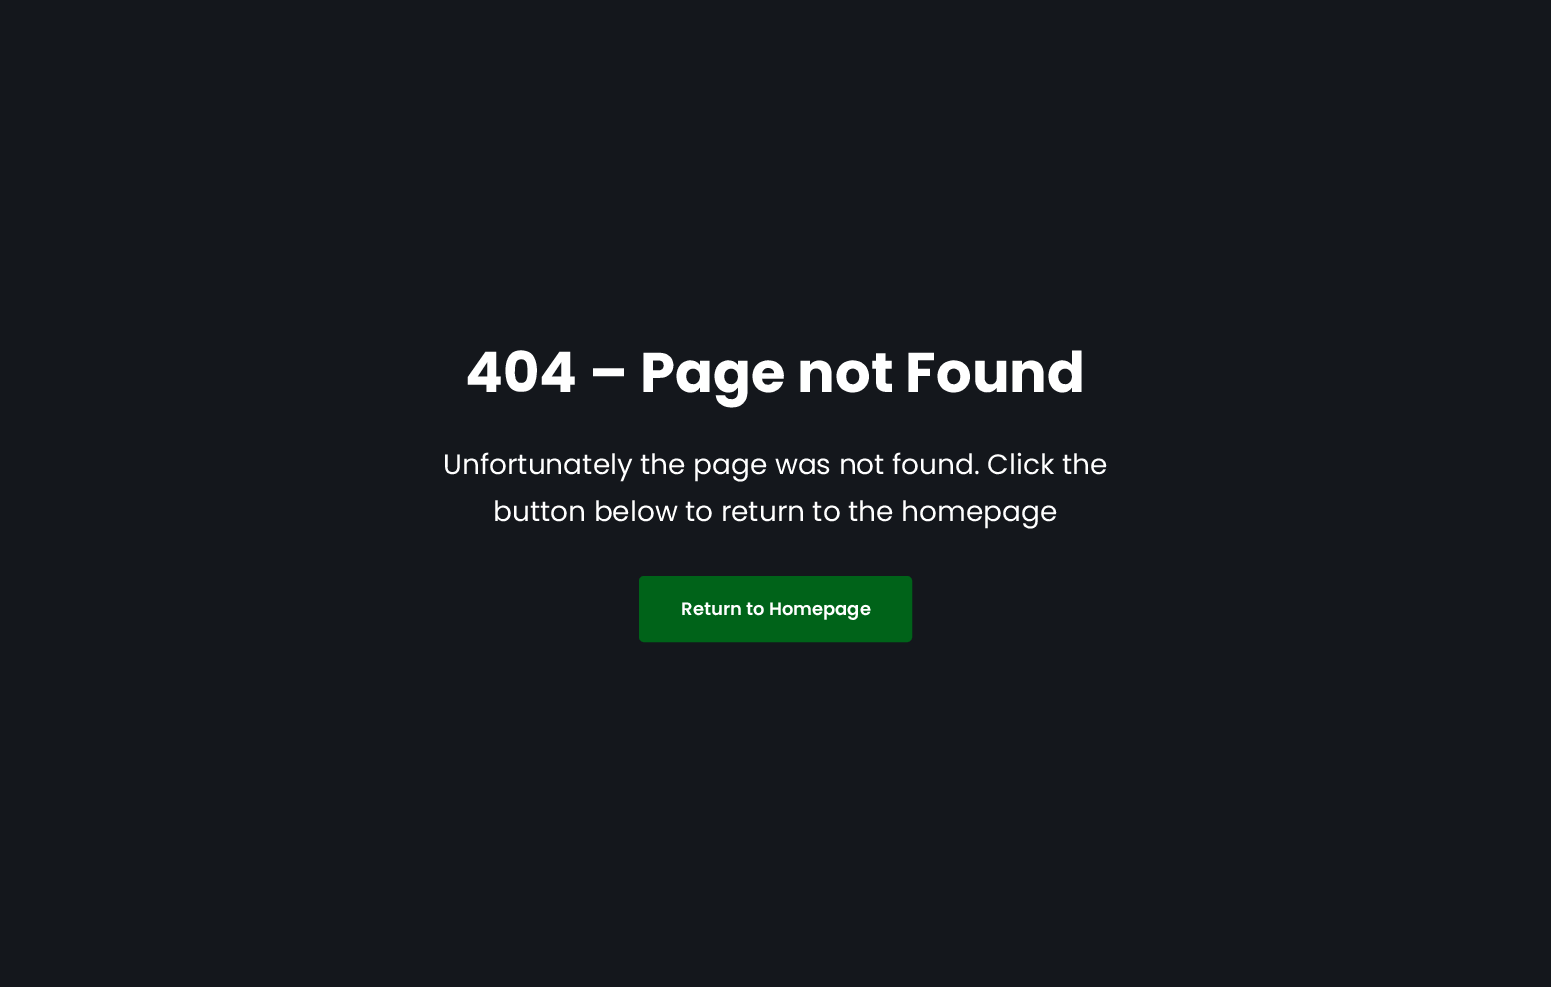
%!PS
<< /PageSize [1551 987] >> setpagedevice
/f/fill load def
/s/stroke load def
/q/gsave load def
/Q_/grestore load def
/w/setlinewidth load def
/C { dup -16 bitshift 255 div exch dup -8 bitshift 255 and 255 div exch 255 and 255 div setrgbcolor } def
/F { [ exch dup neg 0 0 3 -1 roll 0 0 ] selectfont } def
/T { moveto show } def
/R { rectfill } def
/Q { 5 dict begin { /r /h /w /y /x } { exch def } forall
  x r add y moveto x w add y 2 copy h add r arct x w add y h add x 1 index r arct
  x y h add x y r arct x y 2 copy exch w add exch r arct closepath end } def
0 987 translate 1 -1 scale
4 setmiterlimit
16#14171C C
0 0 1551 987 R
/Poppins-Bold 56 F
16#FFFFFF C
(404 – Page not Found) 465 392 T
/Poppins-Regular 28 F
(Unfortunately the page was not found. Click the) 443 474 T
(button below to return to the homepage) 493 521 T
16#006319 C
640 577 271 64 4 Q q f Q_
2 w
s
/Poppins-SemiBold 18 F
16#FFFFFF C
(Return to Homepage) 681 615 T
showpage
